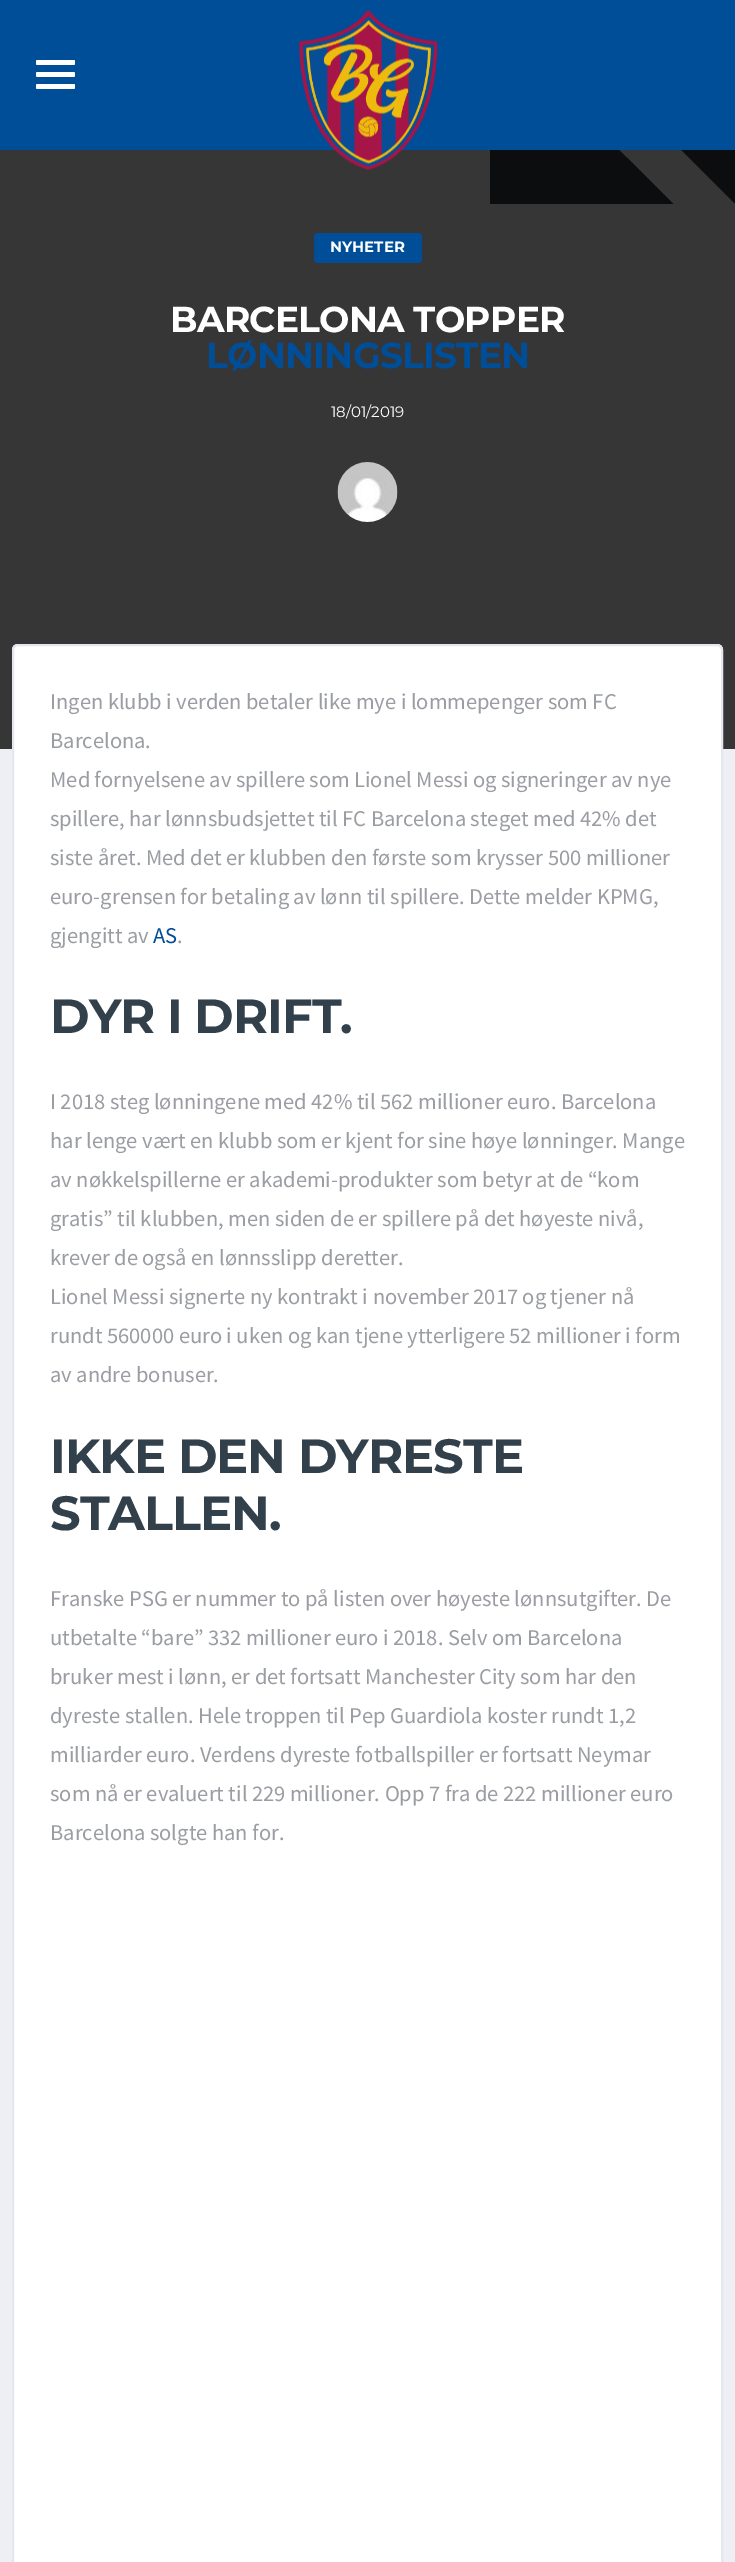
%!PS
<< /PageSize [735 2562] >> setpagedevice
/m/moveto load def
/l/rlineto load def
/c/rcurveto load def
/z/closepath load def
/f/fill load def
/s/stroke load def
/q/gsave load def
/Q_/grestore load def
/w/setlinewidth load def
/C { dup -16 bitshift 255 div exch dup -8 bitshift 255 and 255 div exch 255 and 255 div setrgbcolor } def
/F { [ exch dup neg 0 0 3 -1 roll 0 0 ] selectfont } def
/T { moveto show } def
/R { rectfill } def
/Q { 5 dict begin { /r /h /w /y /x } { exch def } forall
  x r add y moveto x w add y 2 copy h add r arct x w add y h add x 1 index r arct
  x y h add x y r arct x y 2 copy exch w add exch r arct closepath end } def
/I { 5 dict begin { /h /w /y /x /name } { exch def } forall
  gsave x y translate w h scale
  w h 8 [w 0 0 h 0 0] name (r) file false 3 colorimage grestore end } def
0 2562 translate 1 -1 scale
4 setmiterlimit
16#EDEFF4 C
0 0 735 2562 R
16#004D98 C
0 0 735 150 R
16#FFFFFF C
36 60 39 5 1.5 Q f
36 72 39 5 1.5 Q f
36 84 39 5 1.5 Q f
16#0C0D0E C
490 150 245 54 R
q
0 150 735 599 rectclip
16#363636 C
490 -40 m -490 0 l 0 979 l 735 0 l 0 -735 l z 490 204 m 0 -183 l 184 183 l z f
Q_
(1.rgb) 299 10 139 161 I
16#004D98 C
314 233 108 30 4 Q f
/Montserrat-Bold 15 F
16#FFFFFF C
(NYHETER) 330 252 T
/Montserrat-Bold 36 F
170 332 m -.75 0 (BARCELONA TOPPER) ashow
16#004D98 C
206 368 m -.75 0 (LØNNINGSLISTEN) ashow
/Montserrat-Regular 15 F
16#FFFFFF C
(18/01/2019) 331 417 T
(2.rgb) 337 462 61 60 I
18 644 m 699 0 l 3.5 0 6 2.5 6 6 c 0 1912 l -711 0 l 0 -1912 l 0 -3.5 2.5 -6 6 -6 c z f
16#E4E7ED C
2 w
13 645 709 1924 5 Q s
/SourceSansPro-Regular 22.5 F
16#9A9DA2 C
(Ingen klubb i verden betaler like mye i lommepenger som FC) 50 709 T
(Barcelona.) 50 748 T
(Med fornyelsene av spillere som Lionel Messi og signeringer av nye) 50 787 T
(spillere, har lønnsbudsjettet til FC Barcelona steget med 42% det) 50 826 T
(siste året. Med det er klubben den første som krysser 500 millioner) 50 865 T
(euro-grensen for betaling av lønn til spillere. Dette melder KPMG,) 50 904 T
(gjengitt av) 50 943 T
16#004D98 C
(AS) 153 943 T
16#9A9DA2 C
(.) 177 943 T
/Montserrat-Bold 48 F
16#31404B C
50 1033 m -1 0 (DYR I DRIFT.) ashow
/SourceSansPro-Regular 22.5 F
16#9A9DA2 C
(I 2018 steg lønningene med 42% til 562 millioner euro. Barcelona) 50 1109 T
(har lenge vært en klubb som er kjent for sine høye lønninger. Mange) 50 1148 T
(av nøkkelspillerne er akademi-produkter som betyr at de “kom) 50 1187 T
(gratis” til klubben, men siden de er spillere på det høyeste nivå,) 50 1226 T
(krever de også en lønnsslipp deretter.) 50 1265 T
(Lionel Messi signerte ny kontrakt i november 2017 og tjener nå) 50 1304 T
(rundt 560000 euro i uken og kan tjene ytterligere 52 millioner i form) 50 1343 T
(av andre bonuser.) 50 1382 T
/Montserrat-Bold 48 F
16#31404B C
50 1473 m -1 0 (IKKE DEN DYRESTE) ashow
50 1530 m -1 0 (STALLEN.) ashow
/SourceSansPro-Regular 22.5 F
16#9A9DA2 C
(Franske PSG er nummer to på listen over høyeste lønnsutgifter. De) 50 1606 T
(utbetalte “bare” 332 millioner euro i 2018. Selv om Barcelona) 50 1645 T
(bruker mest i lønn, er det fortsatt Manchester City som har den) 50 1684 T
(dyreste stallen. Hele troppen til Pep Guardiola koster rundt 1,2) 50 1723 T
(milliarder euro. Verdens dyreste fotballspiller er fortsatt Neymar) 50 1762 T
(som nå er evaluert til 229 millioner. Opp 7 fra de 222 millioner euro) 50 1801 T
(Barcelona solgte han for.) 50 1840 T
showpage
